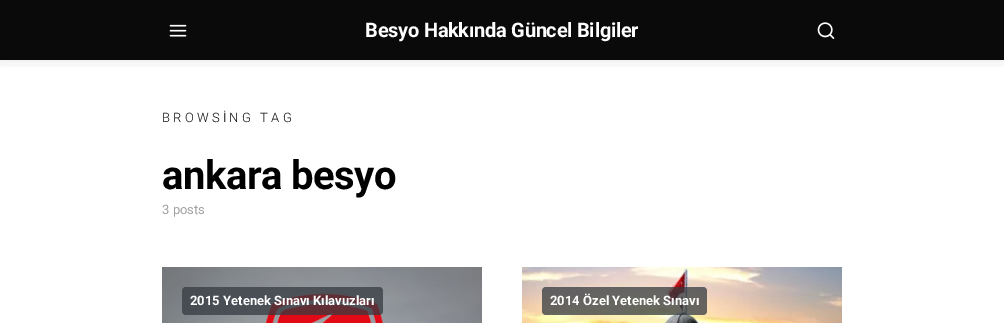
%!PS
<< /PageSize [1004 323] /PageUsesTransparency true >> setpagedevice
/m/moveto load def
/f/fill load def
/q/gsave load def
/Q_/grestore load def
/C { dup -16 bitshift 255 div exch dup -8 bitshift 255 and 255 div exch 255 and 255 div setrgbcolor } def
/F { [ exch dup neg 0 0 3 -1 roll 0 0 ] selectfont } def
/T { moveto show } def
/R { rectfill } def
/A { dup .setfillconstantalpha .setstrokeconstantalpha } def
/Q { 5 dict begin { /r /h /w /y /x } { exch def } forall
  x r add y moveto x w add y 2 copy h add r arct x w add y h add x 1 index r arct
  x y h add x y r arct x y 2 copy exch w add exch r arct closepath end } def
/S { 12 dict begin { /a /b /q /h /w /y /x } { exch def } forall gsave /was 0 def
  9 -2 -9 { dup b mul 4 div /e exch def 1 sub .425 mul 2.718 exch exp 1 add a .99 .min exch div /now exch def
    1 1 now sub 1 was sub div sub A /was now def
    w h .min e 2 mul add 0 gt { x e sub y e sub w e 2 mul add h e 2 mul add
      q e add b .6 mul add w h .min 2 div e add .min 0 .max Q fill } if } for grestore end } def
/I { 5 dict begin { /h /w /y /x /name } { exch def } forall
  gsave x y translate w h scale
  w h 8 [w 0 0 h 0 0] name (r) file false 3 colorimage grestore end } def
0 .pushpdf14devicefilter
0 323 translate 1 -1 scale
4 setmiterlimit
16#FFFFFF C
0 0 1004 323 R
16#0A0A0A C
0 0 1004 60 R
q
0 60 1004 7 rectclip
16#000000 C
0 0 1004 60 0 8 .1 S
Q_
(1.rgb) 169 24 18 13 I
/Roboto-Bold 20 F
16#FFFFFF C
365 37 m -.25 0 (Besyo Hakkında Güncel Bilgiler) ashow
(2.rgb) 817 22 18 17 I
/Roboto-Light 13 F
16#0A0808 C
162 122 m 3.25 0 (BROWSİNG TAG) ashow
/Roboto-Bold 40 F
16#000000 C
162 189 m -.5 0 (ankara besyo) ashow
/Roboto-Regular 13 F
16#A0A0A0 C
(3 posts) 162 214 T
(3.rgb) 162 267 320 56 I
0.75 A
16#343A40 C
182 287 201 28 4 Q f
/Roboto-Bold 13 F
1 A
16#FFFFFF C
(2015 Yetenek Sınavı Kılavuzları) 190 305 T
(4.rgb) 522 267 320 56 I
0.75 A
16#343A40 C
542 287 165 28 4 Q f
1 A
16#FFFFFF C
(2014 Özel Yetenek Sınavı) 550 305 T
.poppdf14devicefilter showpage
